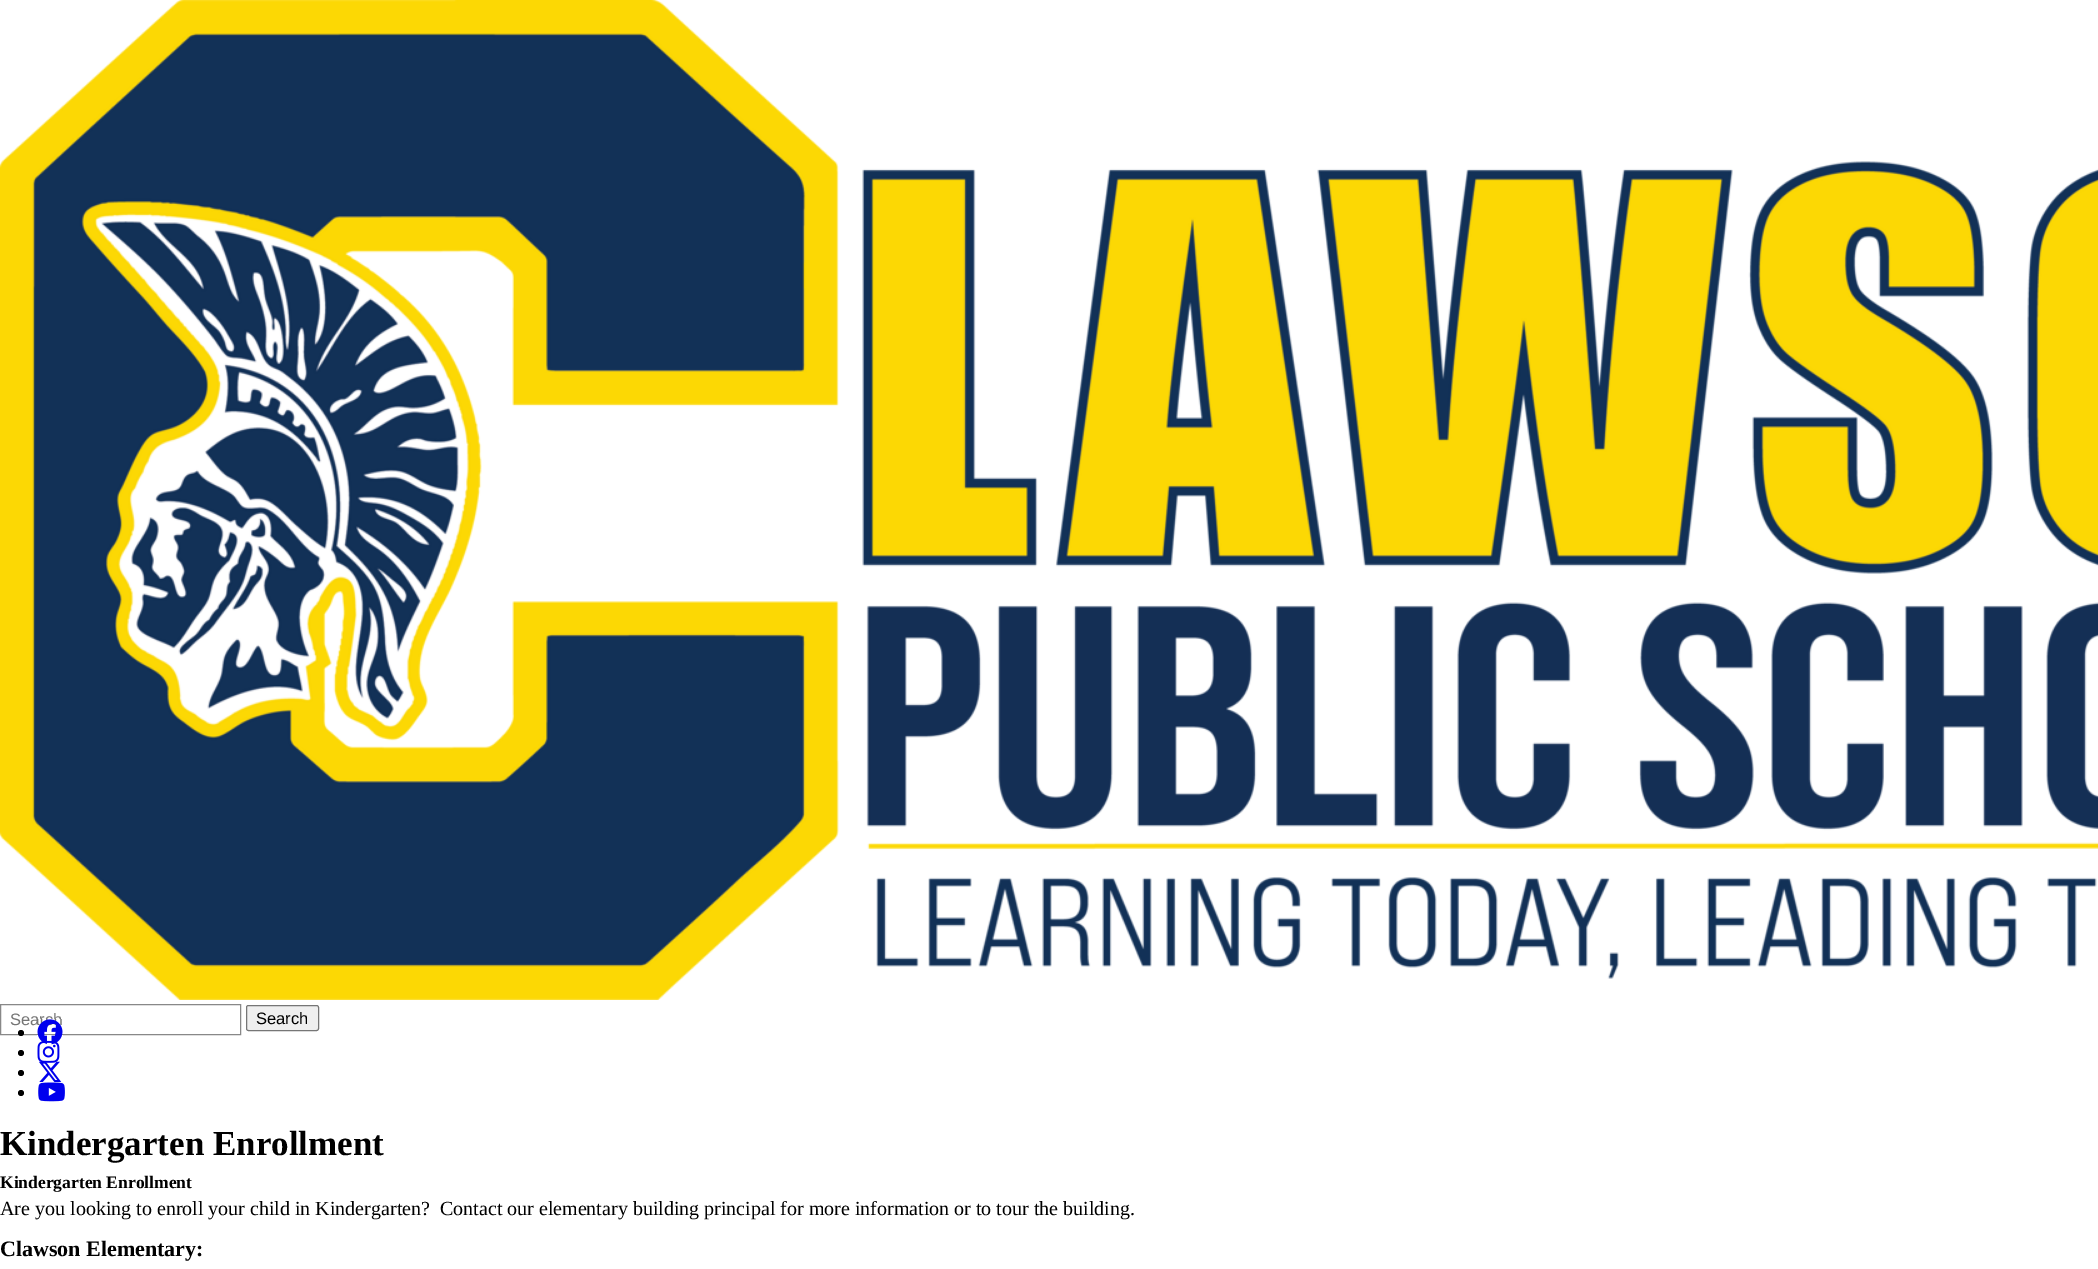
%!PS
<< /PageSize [2098 1269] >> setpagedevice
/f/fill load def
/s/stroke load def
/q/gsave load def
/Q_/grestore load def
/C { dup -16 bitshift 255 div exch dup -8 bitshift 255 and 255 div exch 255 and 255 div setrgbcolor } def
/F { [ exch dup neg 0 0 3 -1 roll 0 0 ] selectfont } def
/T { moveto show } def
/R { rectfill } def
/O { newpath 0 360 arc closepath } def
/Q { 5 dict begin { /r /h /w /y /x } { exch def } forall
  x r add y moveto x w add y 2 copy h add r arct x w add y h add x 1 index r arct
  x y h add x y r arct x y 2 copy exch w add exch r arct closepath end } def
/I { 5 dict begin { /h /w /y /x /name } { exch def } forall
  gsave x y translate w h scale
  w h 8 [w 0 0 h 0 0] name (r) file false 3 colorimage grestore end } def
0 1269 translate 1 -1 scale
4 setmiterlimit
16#FFFFFF C
0 0 2098 1269 R
(1.rgb) 0 0 2098 1000 I
16#888888 C
.5 1004.5 240 30 rectstroke
/LiberationSans-Regular 16.5 F
16#757575 C
(Search) 10 1025 T
16#EFEFEF C
246.5 1005.5 72 25 2 Q q f Q_
16#767676 C
s
16#000000 C
(Search) 256 1024 T
21 1033 3 O f
(2.rgb) 37 1019 26 26 I
21 1053 3 O f
(3.rgb) 37 1040 23 23 I
21 1073 3 O f
(4.rgb) 39 1061 23 21 I
21 1093 3 O f
(5.rgb) 38 1082 27 20 I
/LiberationSerif-Bold 35 F
(Kindergarten Enrollment) 0 1155 T
/LiberationSerif-Bold 17.5 F
(Kindergarten Enrollment) 0 1188 T
/LiberationSerif-Regular 20 F
(Are you looking to enroll your child in Kindergarten?  Contact our elementary building principal for more information or to tour the building.) 0 1215 T
/LiberationSerif-Bold 22 F
(Clawson Elementary:) 0 1256 T
showpage
